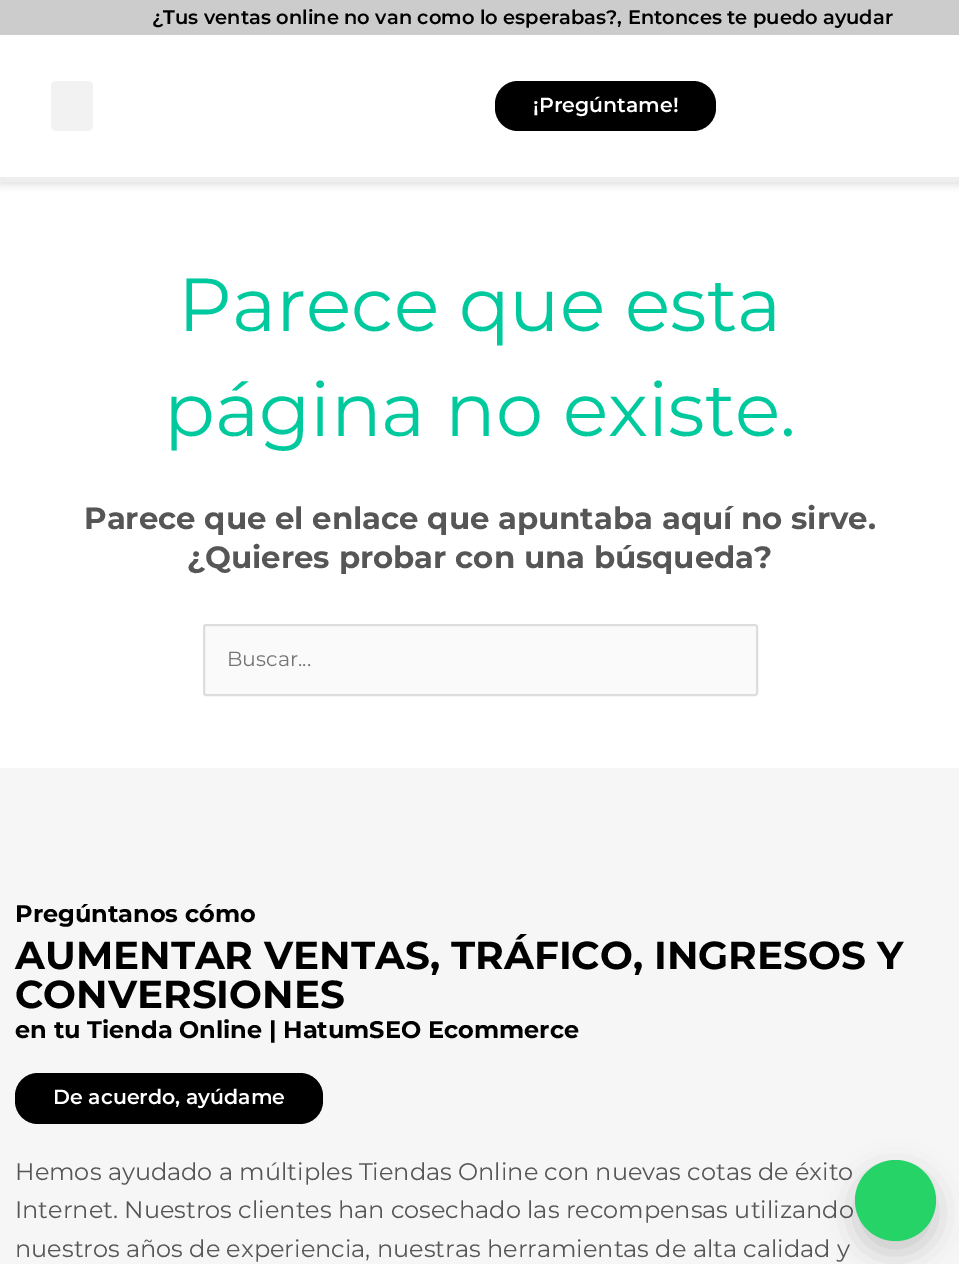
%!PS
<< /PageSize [959 1264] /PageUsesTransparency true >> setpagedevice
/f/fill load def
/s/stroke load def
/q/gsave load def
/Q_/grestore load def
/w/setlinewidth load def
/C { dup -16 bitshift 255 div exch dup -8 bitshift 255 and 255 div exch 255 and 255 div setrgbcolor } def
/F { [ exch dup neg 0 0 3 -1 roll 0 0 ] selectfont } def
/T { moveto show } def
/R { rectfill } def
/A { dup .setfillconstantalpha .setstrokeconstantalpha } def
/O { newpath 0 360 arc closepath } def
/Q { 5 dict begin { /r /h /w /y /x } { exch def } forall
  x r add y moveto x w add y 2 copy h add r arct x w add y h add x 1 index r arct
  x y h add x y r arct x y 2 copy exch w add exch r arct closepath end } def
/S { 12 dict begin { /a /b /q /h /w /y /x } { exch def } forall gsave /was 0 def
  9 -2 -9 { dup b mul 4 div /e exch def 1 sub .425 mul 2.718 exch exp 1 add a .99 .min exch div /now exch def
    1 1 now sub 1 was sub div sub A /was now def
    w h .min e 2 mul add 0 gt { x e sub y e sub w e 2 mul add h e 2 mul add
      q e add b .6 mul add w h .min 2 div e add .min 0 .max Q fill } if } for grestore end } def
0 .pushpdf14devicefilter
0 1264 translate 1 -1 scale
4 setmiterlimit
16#FFFFFF C
0 0 959 1264 R
16#CCCCCC C
0 0 959 35 R
/Montserrat-SemiBold 19.5 F
16#000000 C
(¿Tus ventas online no van como lo esperabas?, Entonces te puedo ayudar) 152 24 T
q
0 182 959 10 rectclip
16#C2C2C2 C
0 42 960 143 0 4 .5 S
Q_
16#F2F2F2 C
51 81 42 50 5 Q f
16#000000 C
495 81 221 50 23 Q f
/Montserrat-SemiBold 20.5 F
16#FFFFFF C
(¡Pregúntame!) 533 112 T
16#EEEEEE C
0 177 959 5 R
/Montserrat-Regular 75 F
16#00C99D C
(Parece que esta) 178 331 T
(página no existe.) 164 436 T
/Montserrat-Bold 30.75 F
16#565656 C
(Parece que el enlace que apuntaba aquí no sirve.) 84 529 T
(¿Quieres probar con una búsqueda?) 187 568 T
16#FAFAFA C
204 625 553 70 2 Q q f Q_
16#DDDDDD C
2 w
s
/Montserrat-Regular 20.5 F
16#757575 C
(Buscar...) 227 666 T
16#F6F6F6 C
0 768 959 496 R
/Montserrat-Bold 24 F
16#000000 C
(Pregúntanos cómo) 15 922 T
/Montserrat-Bold 39 F
(AUMENTAR VENTAS, TRÁFICO, INGRESOS Y) 15 969 T
(CONVERSIONES) 15 1008 T
/Montserrat-Bold 24 F
(en tu Tienda Online | HatumSEO Ecommerce) 15 1038 T
15 1073 308 51 23 Q f
/Montserrat-SemiBold 20.5 F
16#FFFFFF C
(De acuerdo, ayúdame) 53 1104 T
/Montserrat-Regular 24 F
16#565656 C
(Hemos ayudado a múltiples Tiendas Online con nuevas cotas de éxito) 15 1180 T
(Internet. Nuestros clientes han cosechado las recompensas utilizando) 15 1218 T
(nuestros años de experiencia, nuestras herramientas de alta calidad y) 15 1257 T
16#000000 C
855 1172 81 81 40.5 15 .18 S
16#25D366 C
895.5 1200.5 40.5 O f
.poppdf14devicefilter showpage
